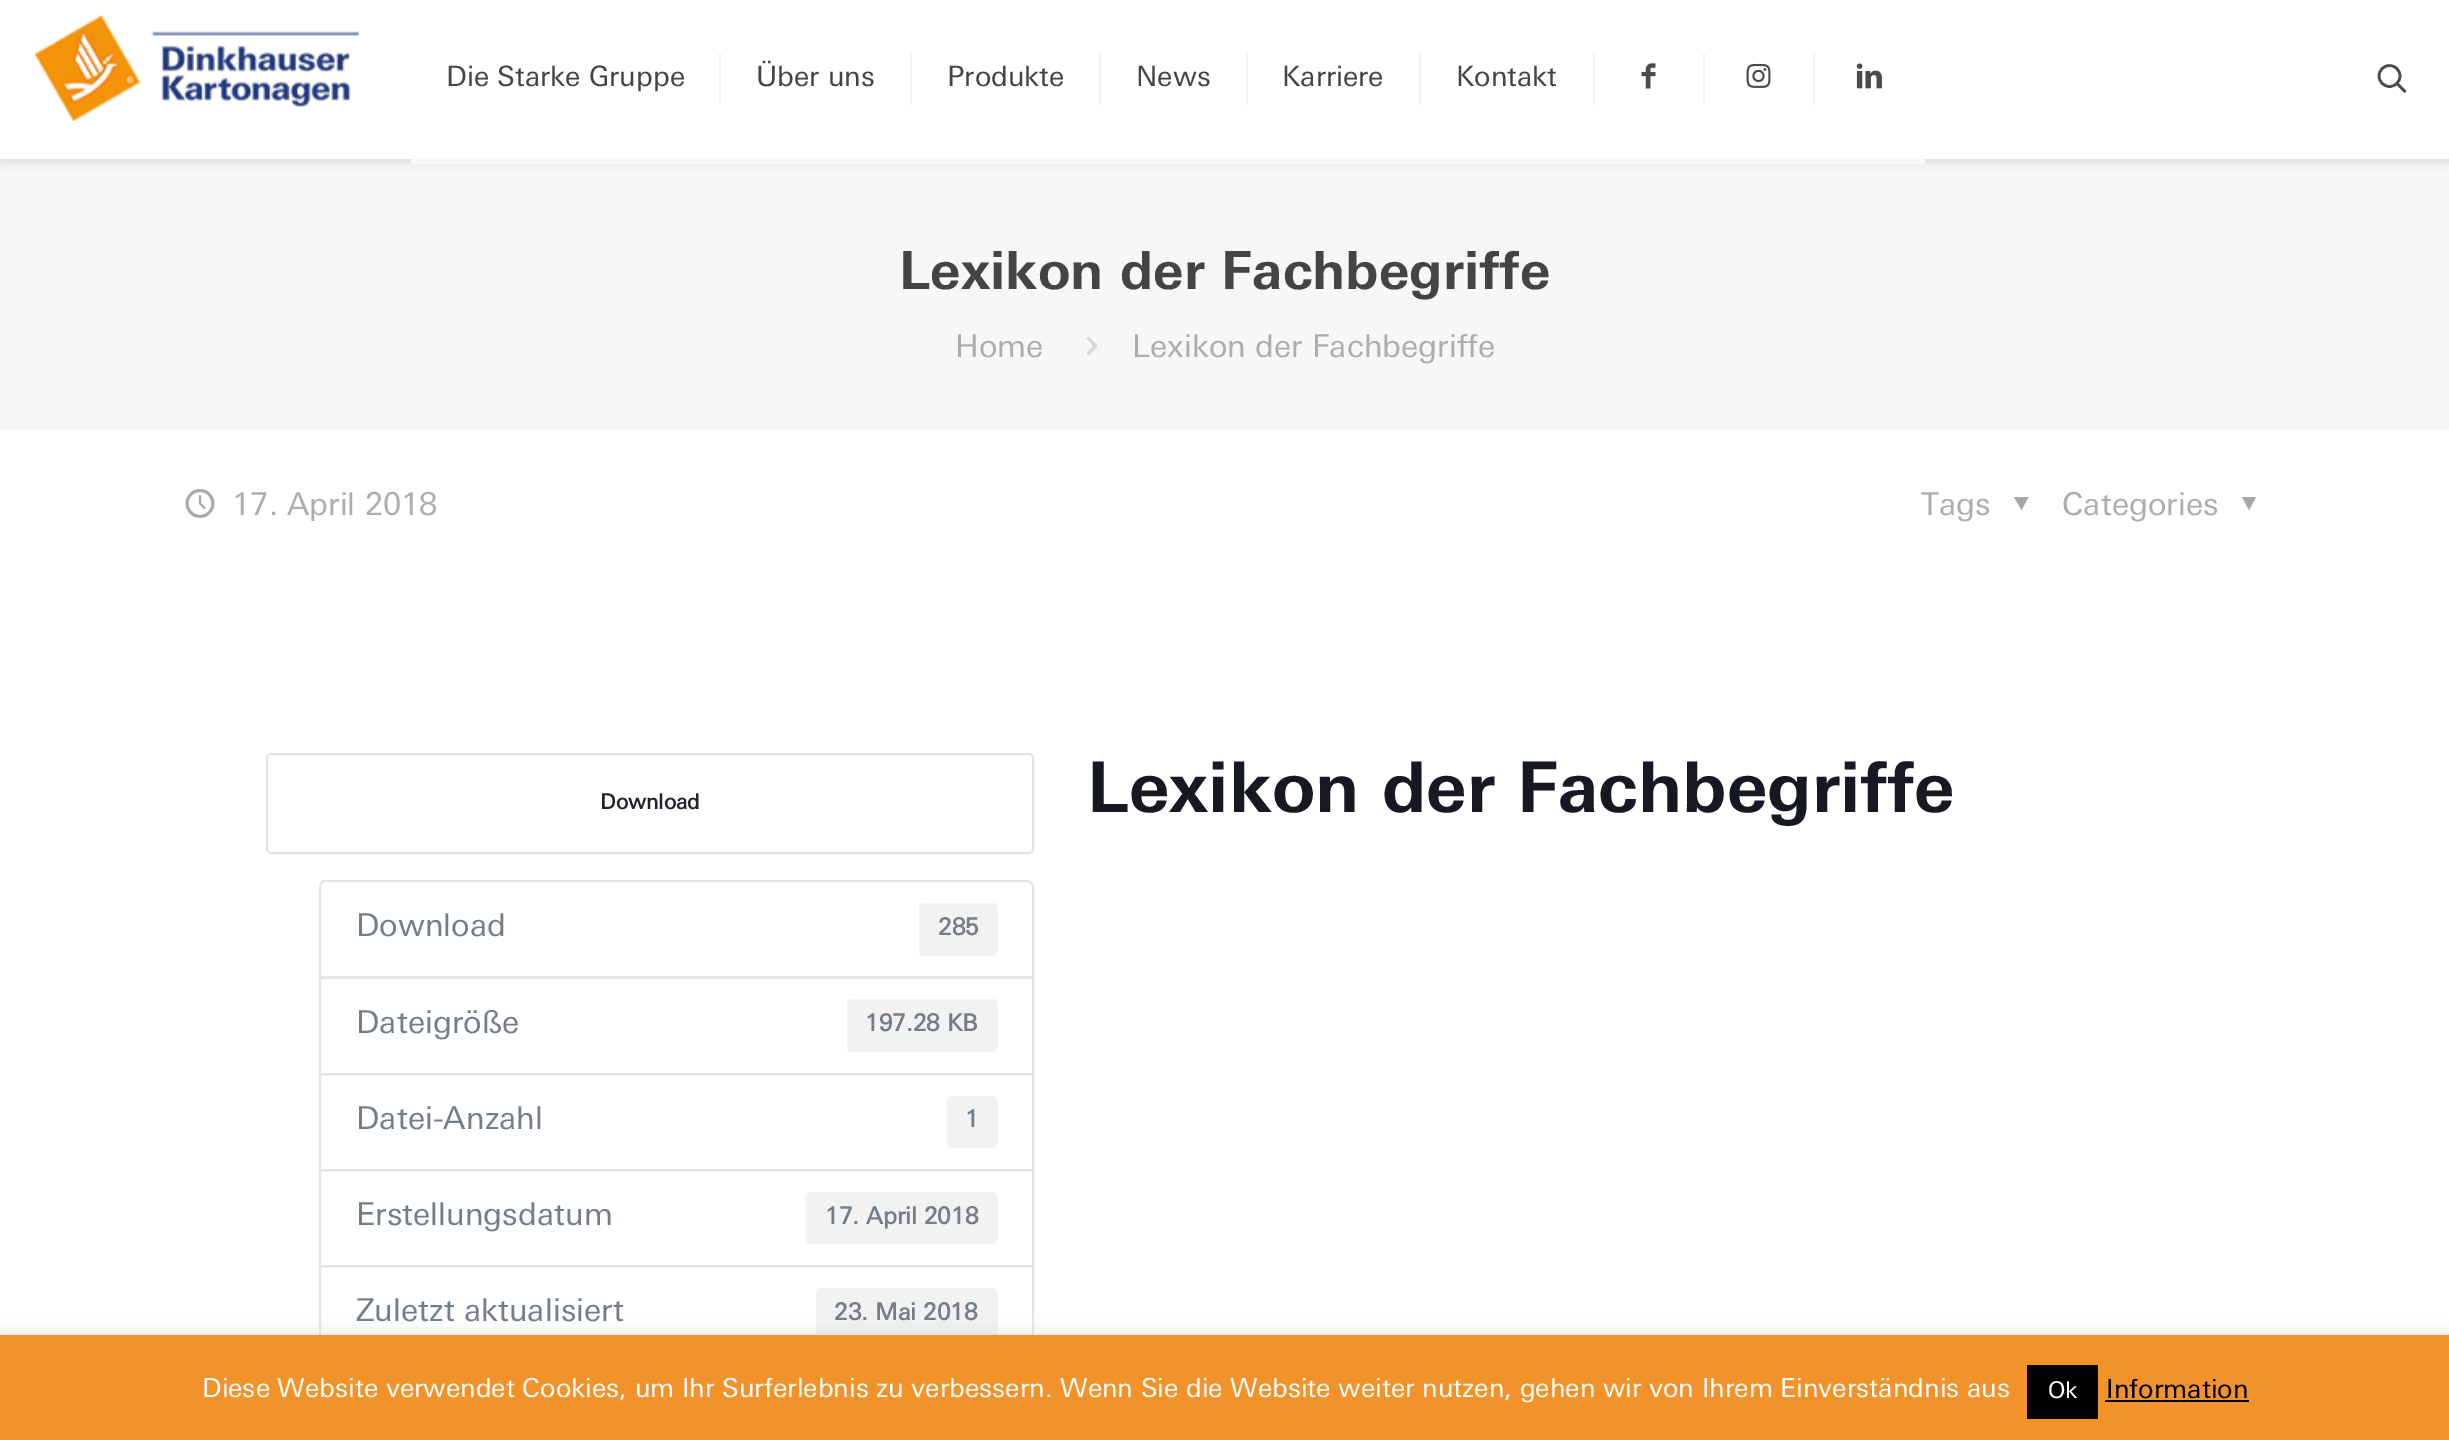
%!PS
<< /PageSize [2449 1440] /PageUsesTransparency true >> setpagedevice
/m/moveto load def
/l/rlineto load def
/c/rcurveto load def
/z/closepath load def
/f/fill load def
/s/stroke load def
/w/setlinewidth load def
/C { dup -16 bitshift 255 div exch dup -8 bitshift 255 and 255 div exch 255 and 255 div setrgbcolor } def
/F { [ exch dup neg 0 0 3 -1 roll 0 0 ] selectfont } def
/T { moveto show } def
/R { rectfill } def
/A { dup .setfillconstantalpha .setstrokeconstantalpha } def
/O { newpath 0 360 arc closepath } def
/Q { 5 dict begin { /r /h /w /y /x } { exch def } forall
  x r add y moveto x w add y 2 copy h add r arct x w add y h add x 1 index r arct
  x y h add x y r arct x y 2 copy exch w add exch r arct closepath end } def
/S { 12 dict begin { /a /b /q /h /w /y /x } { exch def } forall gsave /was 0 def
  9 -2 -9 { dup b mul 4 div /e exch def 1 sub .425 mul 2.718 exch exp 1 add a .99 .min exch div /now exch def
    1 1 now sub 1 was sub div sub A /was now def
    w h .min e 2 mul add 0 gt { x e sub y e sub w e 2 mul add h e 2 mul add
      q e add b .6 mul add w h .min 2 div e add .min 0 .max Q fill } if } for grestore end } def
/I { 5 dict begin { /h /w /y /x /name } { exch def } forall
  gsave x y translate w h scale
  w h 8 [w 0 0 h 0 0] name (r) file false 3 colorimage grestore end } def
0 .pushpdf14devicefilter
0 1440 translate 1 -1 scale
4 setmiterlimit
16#FFFFFF C
0 0 2449 1440 R
16#F7F7F7 C
0 159 2449 270 R
16#070707 C
0 4 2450 159 0 4.5 .1 S
16#FFFFFF C
0 0 2449 159 R
(1.rgb) 35 15 324 106 I
16#F3F3F3 C
719 53 2 52 R
/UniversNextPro-Regular 28 F
16#444444 C
(Die Starke Gruppe) 446 86 T
16#F7F7F7 C
411 158 1514 7 R
16#F3F3F3 C
910 53 2 52 R
16#444444 C
(Über uns) 756 86 T
16#F3F3F3 C
1099 53 2 52 R
16#444444 C
(Produkte) 947 86 T
16#F3F3F3 C
1246 53 2 52 R
16#444444 C
(News) 1136 86 T
16#F3F3F3 C
1419 53 2 52 R
16#444444 C
(Karriere) 1282 86 T
16#F3F3F3 C
1593 53 2 52 R
16#444444 C
(Kontakt) 1456 86 T
16#F3F3F3 C
1703 53 2 52 R
(2.rgb) 1641 63 15 26 I
1813 53 2 52 R
(3.rgb) 1746 63 25 25 I
(4.rgb) 1856 63 26 26 I
16#494949 C
2.6 w
2389.5 76 10.5 O s
2397 83.5 m 8.5 8.5 l s
/UniversNextPro-Bold 52.5 F
16#444444 C
(Lexikon der Fachbegriffe) 899 289 T
/UniversNextPro-Regular 31.5 F
16#ADADAD C
(Home) 955 357 T
(5.rgb) 1086 337 12 18 I
(Lexikon der Fachbegriffe) 1132 357 T
(6.rgb) 185 489 30 29 I
(17. April 2018) 232 515 T
(Tags) 1921 515 T
16#A8A8A8 C
2028.5 497 m -7 13 l -7.5 -13 l z f
16#ADADAD C
(Categories) 2062 515 T
16#A8A8A8 C
2256 497 m -7 13 l -7 -13 l z f
16#E5E5E5 C
2 w
267 754 766 99 4 Q s
/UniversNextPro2-Bold 21 F
16#212529 C
(Download) 600 809 T
16#E5E5E5 C
326 881 m 701 0 l 3.5 0 6 2.5 6 6 c 0 90 l -713 0 l 0 -90 l 0 -3.5 2.5 -6 6 -6 c z s
/UniversNextPro-Regular 31.5 F
16#737E86 C
(Download) 356 936 T
16#F2F2F2 C
919 903 79 53 5 Q f
/UniversNextPro2-Bold 23.5 F
16#737E86 C
(285) 938 935 T
16#E5E5E5 C
320 978 713 96 rectstroke
/UniversNextPro-Regular 31.5 F
16#737E86 C
(Dateigröße) 356 1033 T
16#F2F2F2 C
847 999 151 53 5 Q f
/UniversNextPro2-Bold 23.5 F
16#737E86 C
(197.28 KB) 865 1031 T
16#E5E5E5 C
320 1074 713 96 rectstroke
/UniversNextPro-Regular 31.5 F
16#737E86 C
(Datei-Anzahl) 356 1129 T
16#F2F2F2 C
947 1096 51 52 5 Q f
/UniversNextPro2-Bold 23.5 F
16#737E86 C
(1) 965 1127 T
16#E5E5E5 C
320 1170 713 96 rectstroke
/UniversNextPro-Regular 31.5 F
16#737E86 C
(Erstellungsdatum) 356 1225 T
16#F2F2F2 C
805 1192 193 52 5 Q f
/UniversNextPro2-Bold 23.5 F
16#737E86 C
(17. April 2018) 825 1224 T
16#E5E5E5 C
320 1266 713 96 rectstroke
/UniversNextPro-Regular 31.5 F
16#737E86 C
(Zuletzt aktualisiert) 356 1321 T
16#F2F2F2 C
816 1288 182 53 5 Q f
/UniversNextPro2-Bold 23.5 F
16#737E86 C
(23. Mai 2018) 834 1320 T
/UniversNextPro-Bold 70 F
16#161922 C
(Lexikon der Fachbegriffe) 1087 812 T
16#ACABAB C
0 1334 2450 105 0 9 .3 S
16#F1922A C
0 1335 2449 105 R
/UniversNextPro-Regular 26.25 F
16#FFFFFF C
(Diese Website verwendet Cookies, um Ihr Surferlebnis zu verbessern. Wenn Sie die Website weiter nutzen, gehen wir von Ihrem Einverständnis aus) 202 1397 T
16#000000 C
2027 1365 71 54 R
/UniversNextPro-Regular 23 F
16#FFFFFF C
(Ok) 2048 1398 T
/UniversNextPro-Regular 26.25 F
16#000000 C
(Information) 2106 1398 T
2105 1400 144 2 R
.poppdf14devicefilter showpage
